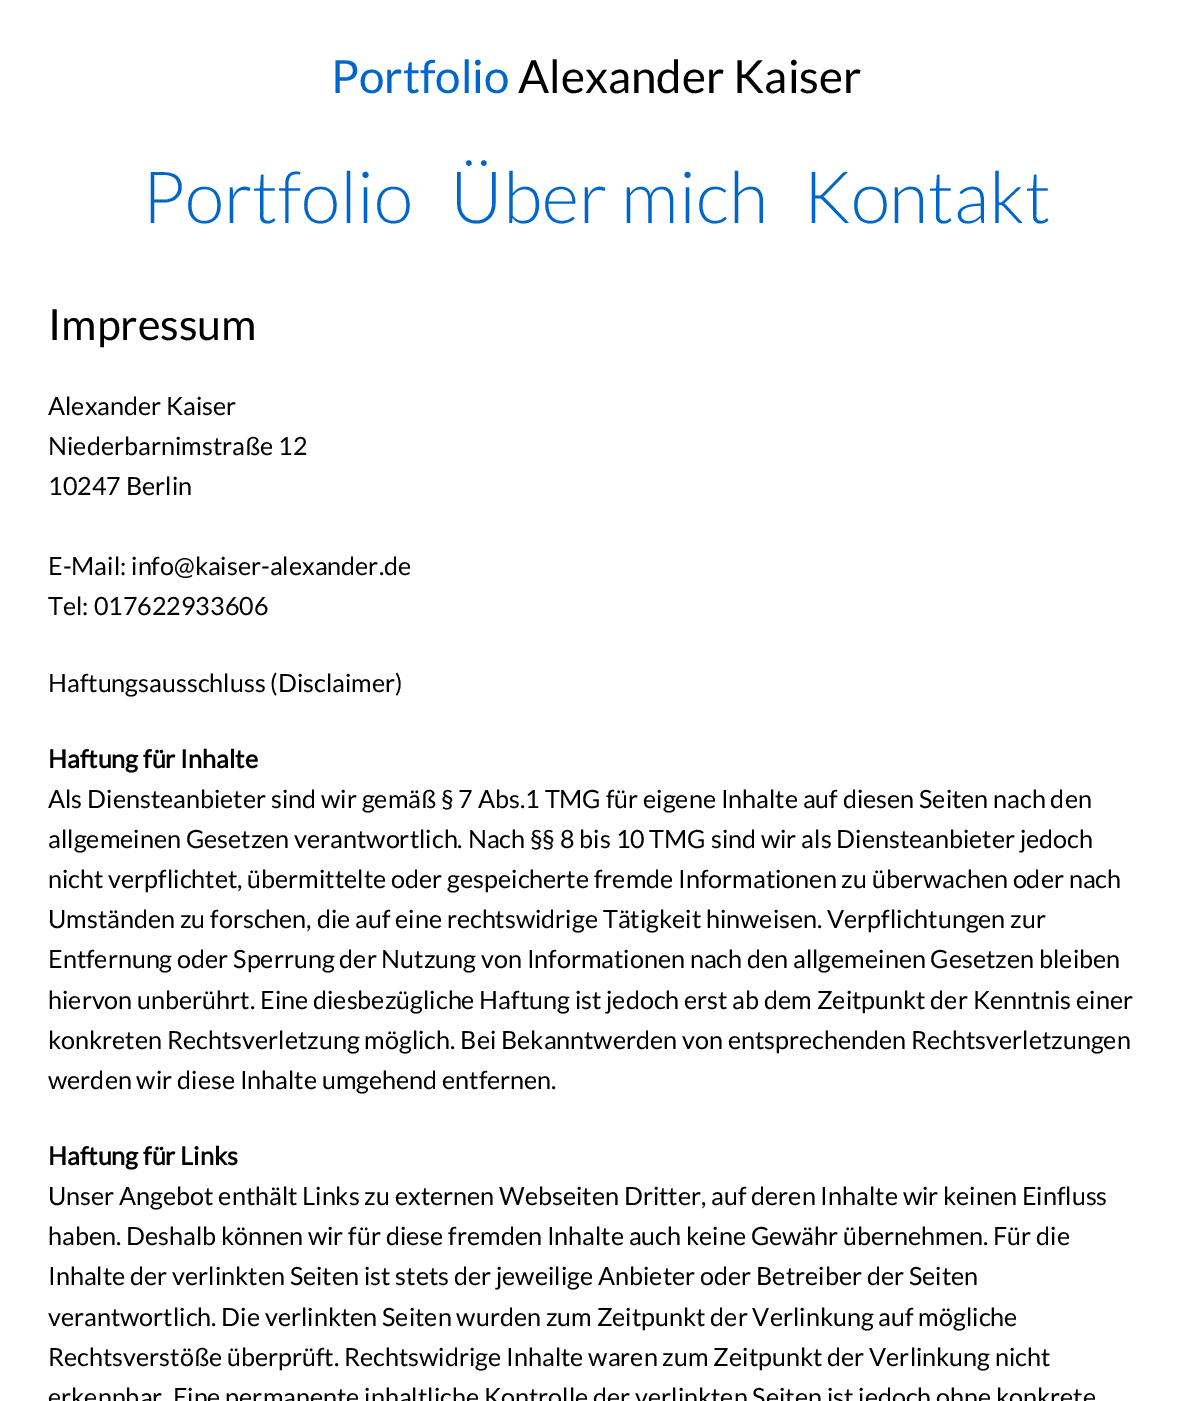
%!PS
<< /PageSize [1192 1401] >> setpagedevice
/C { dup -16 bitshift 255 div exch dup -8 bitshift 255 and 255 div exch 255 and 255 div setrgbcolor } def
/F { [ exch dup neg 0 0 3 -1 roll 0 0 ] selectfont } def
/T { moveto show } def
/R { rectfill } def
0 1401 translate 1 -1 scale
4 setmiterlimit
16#FFFFFF C
0 0 1192 1401 R
/Lato-Regular 45.75 F
16#0066CC C
(Portfolio) 331 93 T
16#000000 C
(Alexander Kaiser) 518 93 T
/Lato-Light 72 F
16#0066CC C
(Portfolio) 142 223 T
(Über mich) 450 223 T
(Kontakt) 803 223 T
/Lato-Regular 43 F
16#000000 C
(Impressum) 48 340 T
/Lato-Regular 25.1 F
(Alexander Kaiser) 48 415 T
(Niederbarnimstraße 12) 48 455 T
(10247 Berlin) 48 495 T
(E-Mail: info@kaiser-alexander.de) 48 575 T
(Tel: 017622933606) 48 615 T
(Haftungsausschluss \(Disclaimer\)) 48 692 T
/Lato-Bold 25.1 F
(Haftung für Inhalte) 48 768 T
/Lato-Regular 25.1 F
(Als Diensteanbieter sind wir gemäß § 7 Abs.1 TMG für eigene Inhalte auf diesen Seiten nach den) 48 808 T
(allgemeinen Gesetzen verantwortlich. Nach §§ 8 bis 10 TMG sind wir als Diensteanbieter jedoch) 48 848 T
(nicht verpflichtet, übermittelte oder gespeicherte fremde Informationen zu überwachen oder nach) 48 888 T
(Umständen zu forschen, die auf eine rechtswidrige Tätigkeit hinweisen. Verpflichtungen zur) 48 928 T
(Entfernung oder Sperrung der Nutzung von Informationen nach den allgemeinen Gesetzen bleiben) 48 968 T
(hiervon unberührt. Eine diesbezügliche Haftung ist jedoch erst ab dem Zeitpunkt der Kenntnis einer) 48 1009 T
(konkreten Rechtsverletzung möglich. Bei Bekanntwerden von entsprechenden Rechtsverletzungen) 48 1049 T
(werden wir diese Inhalte umgehend entfernen.) 48 1089 T
/Lato-Bold 25.1 F
(Haftung für Links) 48 1165 T
/Lato-Regular 25.1 F
(Unser Angebot enthält Links zu externen Webseiten Dritter, auf deren Inhalte wir keinen Einfluss) 48 1205 T
(haben. Deshalb können wir für diese fremden Inhalte auch keine Gewähr übernehmen. Für die) 48 1245 T
(Inhalte der verlinkten Seiten ist stets der jeweilige Anbieter oder Betreiber der Seiten) 48 1285 T
(verantwortlich. Die verlinkten Seiten wurden zum Zeitpunkt der Verlinkung auf mögliche) 48 1326 T
(Rechtsverstöße überprüft. Rechtswidrige Inhalte waren zum Zeitpunkt der Verlinkung nicht) 48 1366 T
(erkennbar. Eine permanente inhaltliche Kontrolle der verlinkten Seiten ist jedoch ohne konkrete) 48 1406 T
showpage
